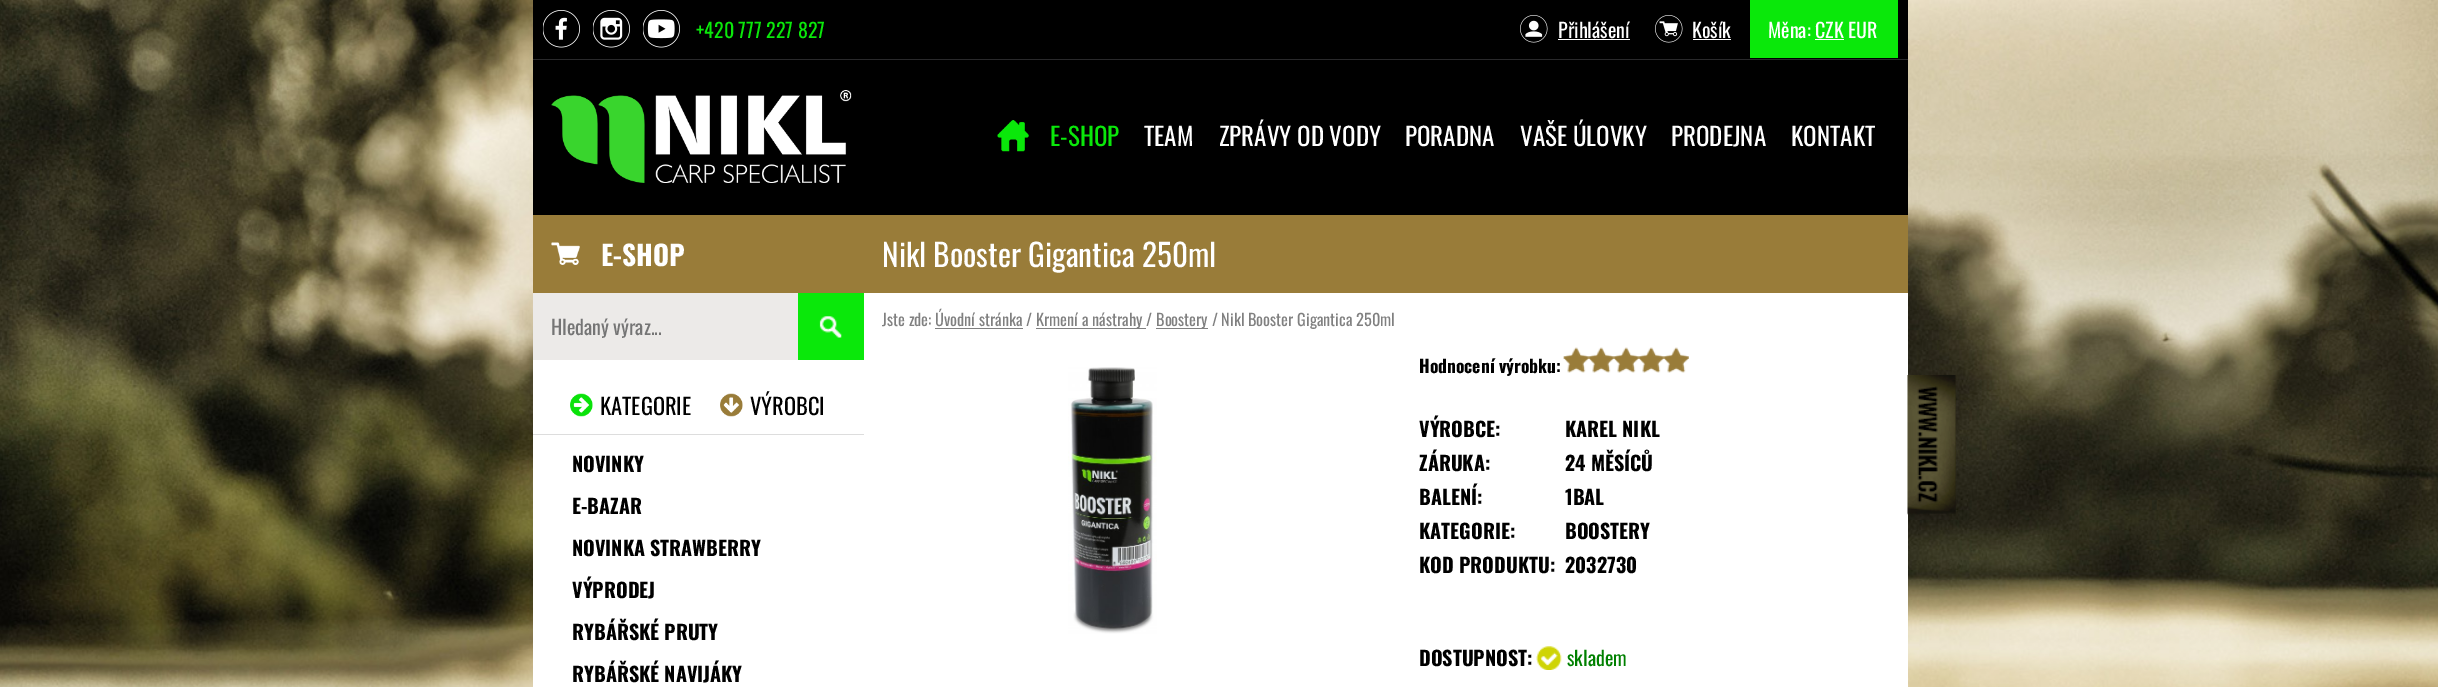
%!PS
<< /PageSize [2438 687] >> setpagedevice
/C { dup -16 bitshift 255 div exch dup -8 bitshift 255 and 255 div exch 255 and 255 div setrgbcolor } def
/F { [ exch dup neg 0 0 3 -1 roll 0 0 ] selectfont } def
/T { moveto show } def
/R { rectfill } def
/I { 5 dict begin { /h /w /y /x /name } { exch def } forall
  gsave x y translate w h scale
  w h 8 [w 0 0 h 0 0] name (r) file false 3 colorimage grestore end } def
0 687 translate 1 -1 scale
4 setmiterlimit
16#FFFFFF C
0 0 2438 687 R
(1.rgb) 0 0 2438 687 I
16#000000 C
533 0 1375 215 R
16#29292B C
533 59 1375 1 R
(2.rgb) 543 10 37 38 I
(3.rgb) 593 10 37 38 I
(4.rgb) 643 10 37 38 I
/Oswald-Regular 20 F
16#0AE80A C
(+420 777 227 827) 696 38 T
(5.rgb) 1520 15 28 28 I
16#FFFFFF C
(Přihlášení) 1558 38 T
1558 39 72 1 R
(6.rgb) 1655 15 28 28 I
(Košík) 1692 38 T
1693 39 38 1 R
16#0AE80A C
1750 0 148 58 R
16#FFFFFF C
(Měna: CZK EUR) 1768 38 T
1815 39 29 1 R
(7.rgb) 551 90 301 93 I
(8.rgb) 997 120 32 32 I
/Oswald-Regular 25 F
16#0AE80A C
(E-SHOP) 1050 146 T
16#FFFFFF C
(TEAM) 1144 146 T
(ZPRÁVY OD VODY) 1219 146 T
(PORADNA) 1405 146 T
(VAŠE ÚLOVKY) 1520 146 T
(PRODEJNA) 1671 146 T
(KONTAKT) 1791 146 T
533 293 1375 394 R
16#997C39 C
533 215 1375 78 R
(9.rgb) 551 242 29 23 I
/Oswald-Bold 27.5 F
16#FFFFFF C
(E-SHOP) 601 266 T
/Oswald-Regular 31.25 F
(Nikl Booster Gigantica 250ml) 882 267 T
16#ECEAE8 C
533 293 265 67 R
/Oswald-Regular 20 F
16#757575 C
(Hledaný výraz...) 551 335 T
16#0AE80A C
798 293 66 67 R
(10.rgb) 819 316 23 22 I
16#DDDDDD C
533 434 331 1 R
(11.rgb) 570 393 23 24 I
/Oswald-Regular 22.5 F
16#000000 C
(KATEGORIE) 600 415 T
(12.rgb) 720 393 23 24 I
(VÝROBCI) 750 415 T
/Oswald-Bold 20 F
(NOVINKY) 572 472 T
(E-BAZAR) 572 514 T
(NOVINKA STRAWBERRY) 572 556 T
(VÝPRODEJ) 572 598 T
(RYBÁŘSKÉ PRUTY) 572 640 T
(RYBÁŘSKÉ NAVIJÁKY) 572 682 T
/Oswald-Regular 16.25 F
16#808080 C
(Jste zde: Úvodní stránka /) 882 326 T
1036 328 110 1 R
(Krmení a nástrahy /) 1036 326 T
1156 328 52 1 R
(Boostery / Nikl Booster Gigantica 250ml) 1156 326 T
935 328 88 1 R
(13.rgb) 1068 367 89 267 I
/Oswald-Bold 17.5 F
16#000000 C
(Hodnocení výrobku:) 1419 373 T
(14.rgb) 1563 347 126 26 I
(15.rgb) 1563 347 126 26 I
/Oswald-Bold 20 F
(VÝROBCE:) 1419 437 T
(KAREL NIKL) 1565 437 T
(ZÁRUKA:) 1419 471 T
(24 MĚSÍCŮ) 1565 471 T
(BALENÍ:) 1419 505 T
(1BAL) 1565 505 T
(KATEGORIE:) 1419 539 T
(BOOSTERY) 1565 539 T
(KOD PRODUKTU:) 1419 573 T
(2032730) 1565 573 T
(DOSTUPNOST:) 1419 666 T
(16.rgb) 1536 646 26 24 I
/Oswald-Regular 20 F
16#008000 C
(skladem) 1567 666 T
(17.rgb) 1907 375 49 140 I
showpage
